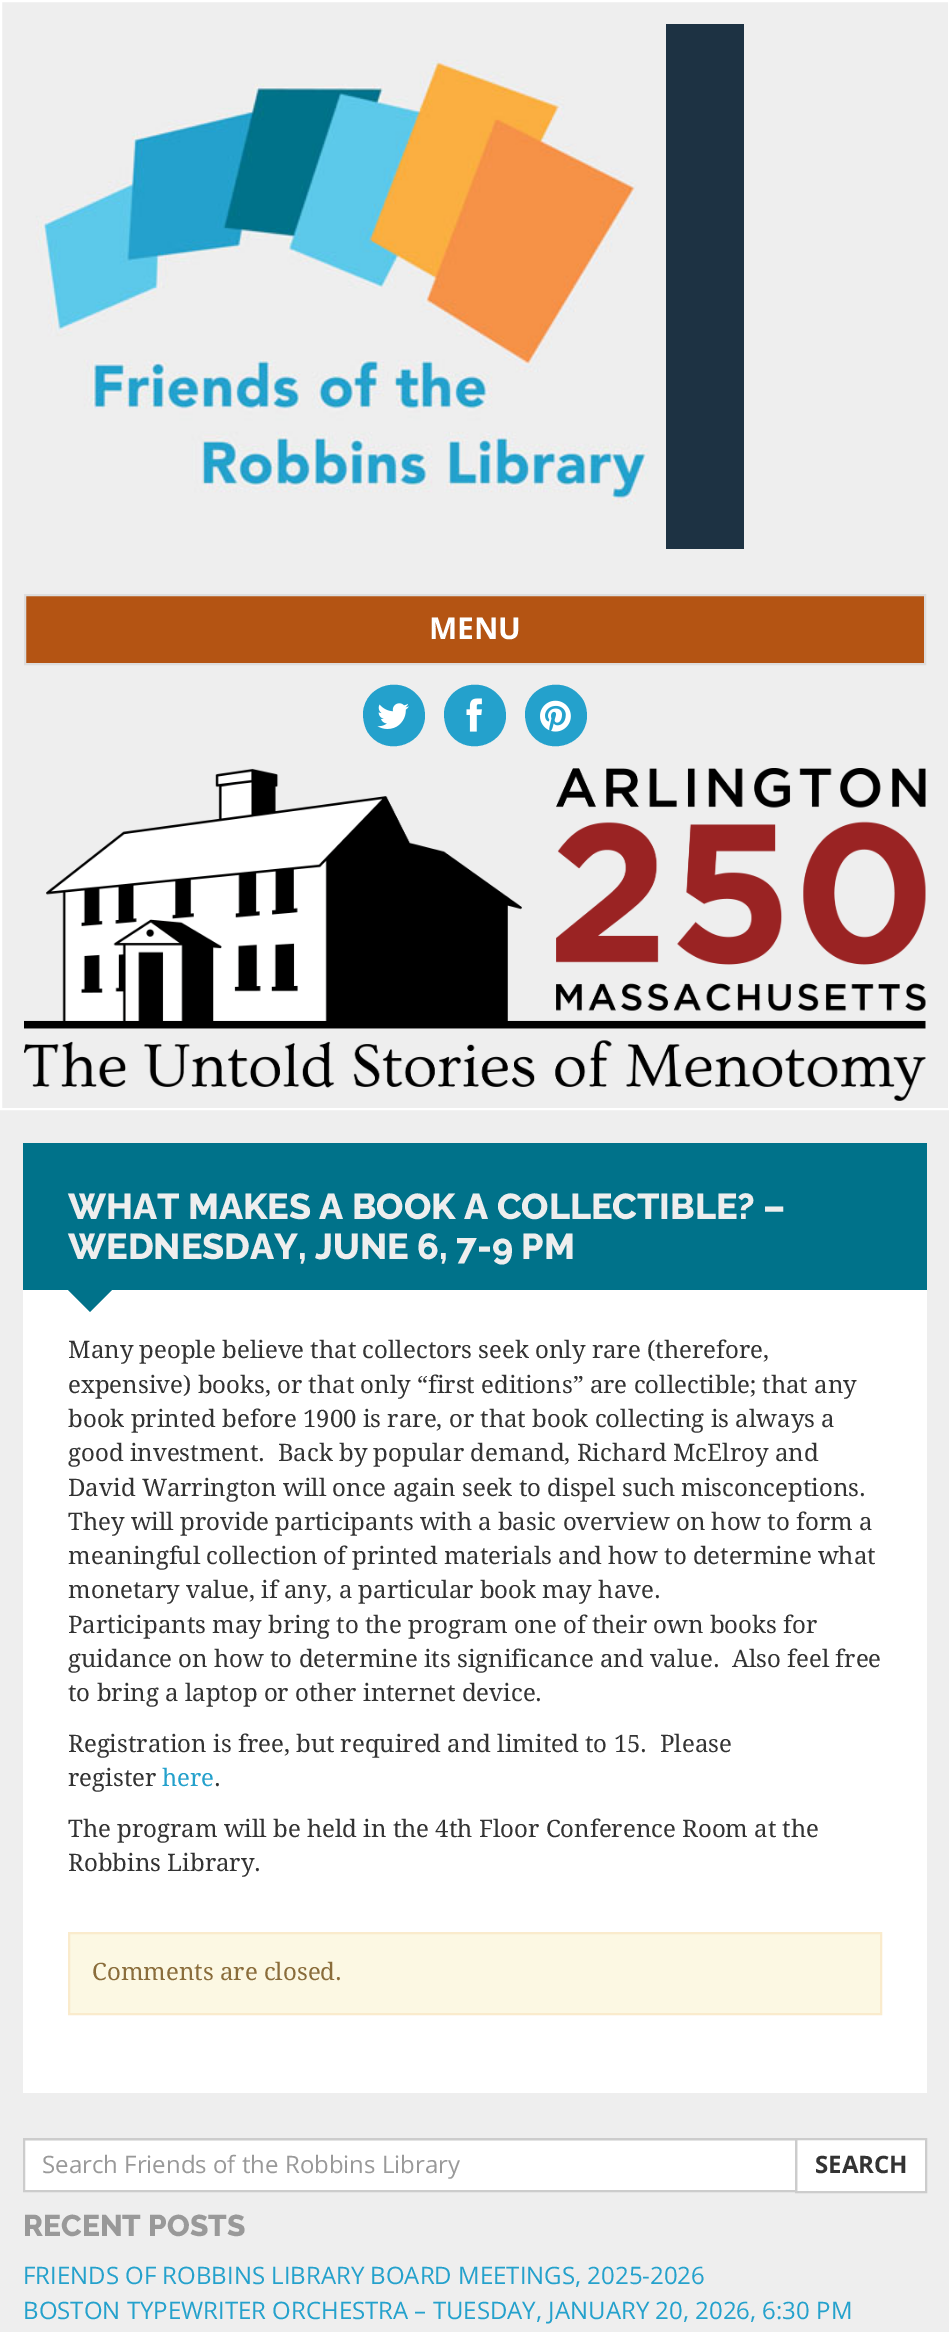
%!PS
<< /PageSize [949 2332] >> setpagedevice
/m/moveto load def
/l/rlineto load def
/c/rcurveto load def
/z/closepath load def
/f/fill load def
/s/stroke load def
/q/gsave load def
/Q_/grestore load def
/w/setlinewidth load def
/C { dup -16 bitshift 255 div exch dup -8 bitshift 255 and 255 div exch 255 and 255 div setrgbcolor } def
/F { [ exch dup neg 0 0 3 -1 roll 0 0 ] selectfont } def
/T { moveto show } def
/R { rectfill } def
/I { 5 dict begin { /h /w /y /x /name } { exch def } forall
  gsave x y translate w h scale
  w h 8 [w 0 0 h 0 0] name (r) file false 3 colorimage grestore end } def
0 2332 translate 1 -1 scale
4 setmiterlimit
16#EEEEEE C
0 0 949 2332 R
16#FFFFFF C
2 w
1 1 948 1108 rectstroke
16#1D3243 C
666 24 78 525 R
(1.rgb) 24 24 642 525 I
16#B45413 C
25 595 m 900 0 l 0 69 l -900 0 l z q f Q_
16#DDDDDD C
s
/OpenSans-Bold 30 F
16#FFFFFF C
(MENU) 429 639 T
16#24A1CC C
421 700 m 3 5 4 11 4 17 c -2 31 -43 40 -58 14 c -3 -6 -4 -12 -4 -18 c 2 -30 42 -39 58 -13 c z f
(2.rgb) 377 703 32 26 I
502 700 m 3 5 4 11 4 17 c -2 31 -43 40 -58 14 c -3 -6 -4 -12 -4 -18 c 2 -30 42 -39 58 -13 c z f
(3.rgb) 466 698 16 34 I
583 700 m 3 5 4 11 4 17 c -2 31 -43 40 -58 14 c -3 -6 -4 -12 -4 -18 c 2 -30 42 -39 58 -13 c z f
(4.rgb) 540 700 31 32 I
(5.rgb) 24 768 902 333 I
16#FFFFFF C
23 1290 904 803 R
16#00728A C
23 1143 904 147 R
/Raleway-ExtraBold 36 F
16#EEEEEE C
(WHAT MAKES A BOOK A COLLECTIBLE? –) 68 1219 T
(WEDNESDAY, JUNE 6, 7-9 PM) 68 1259 T
16#00728A C
68 1290 m 44 0 l -22 22 l z f
/DroidSerif-Regular 24 F
16#333333 C
(Many people believe that collectors seek only rare \(therefore,) 68 1358 T
(expensive\) books, or that only “first editions” are collectible; that any) 68 1393 T
(book printed before 1900 is rare, or that book collecting is always a) 68 1427 T
(good investment.  Back by popular demand, Richard McElroy and) 68 1461 T
(David Warrington will once again seek to dispel such misconceptions.) 68 1496 T
(They will provide participants with a basic overview on how to form a) 68 1530 T
(meaningful collection of printed materials and how to determine what) 68 1564 T
(monetary value, if any, a particular book may have.) 68 1598 T
(Participants may bring to the program one of their own books for) 68 1633 T
(guidance on how to determine its significance and value.  Also feel free) 68 1667 T
(to bring a laptop or other internet device.) 68 1701 T
(Registration is free, but required and limited to 15.  Please) 68 1752 T
(register) 68 1786 T
16#24A1CC C
(here) 162 1786 T
16#333333 C
(.) 214 1786 T
(The program will be held in the 4th Floor Conference Room at the) 68 1837 T
(Robbins Library.) 68 1871 T
16#FCF8E3 C
69 1933 m 812 0 l 0 81 l -812 0 l z q f Q_
16#FAEBCC C
s
16#8A6D3B C
(Comments are closed.) 92 1980 T
16#FFFFFF C
25 2141 770 49 R
796 2139 m 130 0 l 0 53 l -130 0 l z q f Q_
16#CCCCCC C
s
24 2139 772 52 rectstroke
/OpenSans-Regular 24 F
16#999999 C
(Search Friends of the Robbins Library) 42 2173 T
/OpenSans-Bold 24 F
16#333333 C
(SEARCH) 815 2173 T
/Raleway-ExtraBold 30 F
16#999999 C
(RECENT POSTS) 23 2236 T
/OpenSans-Regular 24 F
16#24A1CC C
(FRIENDS OF ROBBINS LIBRARY BOARD MEETINGS, 2025-2026) 23 2284 T
(BOSTON TYPEWRITER ORCHESTRA – TUESDAY, JANUARY 20, 2026, 6:30 PM) 23 2319 T
showpage
